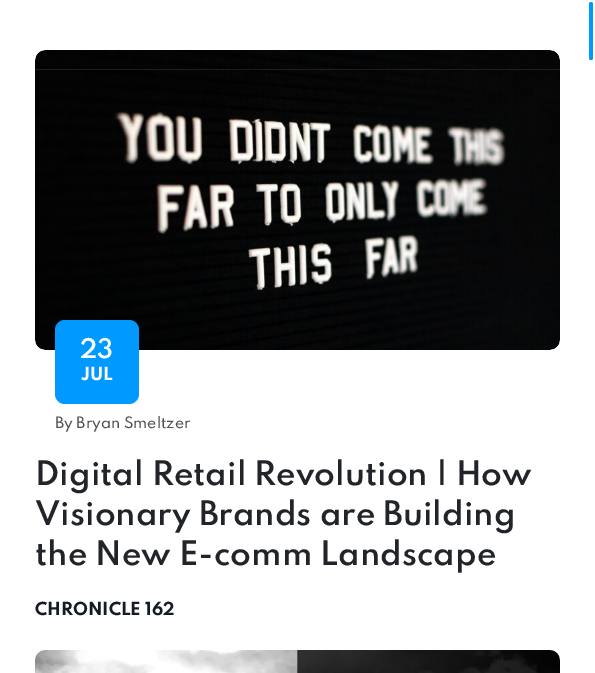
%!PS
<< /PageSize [595 673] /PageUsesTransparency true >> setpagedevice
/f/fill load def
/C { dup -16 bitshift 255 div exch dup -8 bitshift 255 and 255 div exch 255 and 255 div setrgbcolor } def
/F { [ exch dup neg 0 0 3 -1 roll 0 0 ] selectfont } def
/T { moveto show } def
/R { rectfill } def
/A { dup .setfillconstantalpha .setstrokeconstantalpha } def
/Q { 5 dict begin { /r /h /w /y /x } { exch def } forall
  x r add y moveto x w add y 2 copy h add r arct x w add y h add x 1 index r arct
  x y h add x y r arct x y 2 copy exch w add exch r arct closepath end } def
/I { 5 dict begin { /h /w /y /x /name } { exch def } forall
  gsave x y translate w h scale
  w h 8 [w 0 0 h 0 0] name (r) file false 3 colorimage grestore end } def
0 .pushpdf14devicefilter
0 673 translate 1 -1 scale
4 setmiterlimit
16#FFFFFF C
0 0 595 673 R
16#0099FF C
589 2 4 58 2 Q f
(1.rgb) 35 50 525 300 I
0.1 A
16#FFFFFF C
35 69 525 1 R
1 A
16#0099FF C
55 320 84 84 10 Q f
/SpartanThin-SemiBold 24 F
16#FFFFFF C
(23) 80 358 T
/SpartanThin-Bold 16 F
(JUL) 81 380 T
/SpartanThin-Medium 14 F
16#4E5055 C
(By Bryan Smeltzer) 55 428 T
/SpartanThin-SemiBold 30 F
16#212529 C
(Digital Retail Revolution | How) 35 485 T
(Visionary Brands are Building) 35 525 T
(the New E-comm Landscape) 35 565 T
/SpartanThin-Bold 16 F
16#141B25 C
(CHRONICLE 162) 35 615 T
(2.rgb) 35 650 525 23 I
.poppdf14devicefilter showpage
